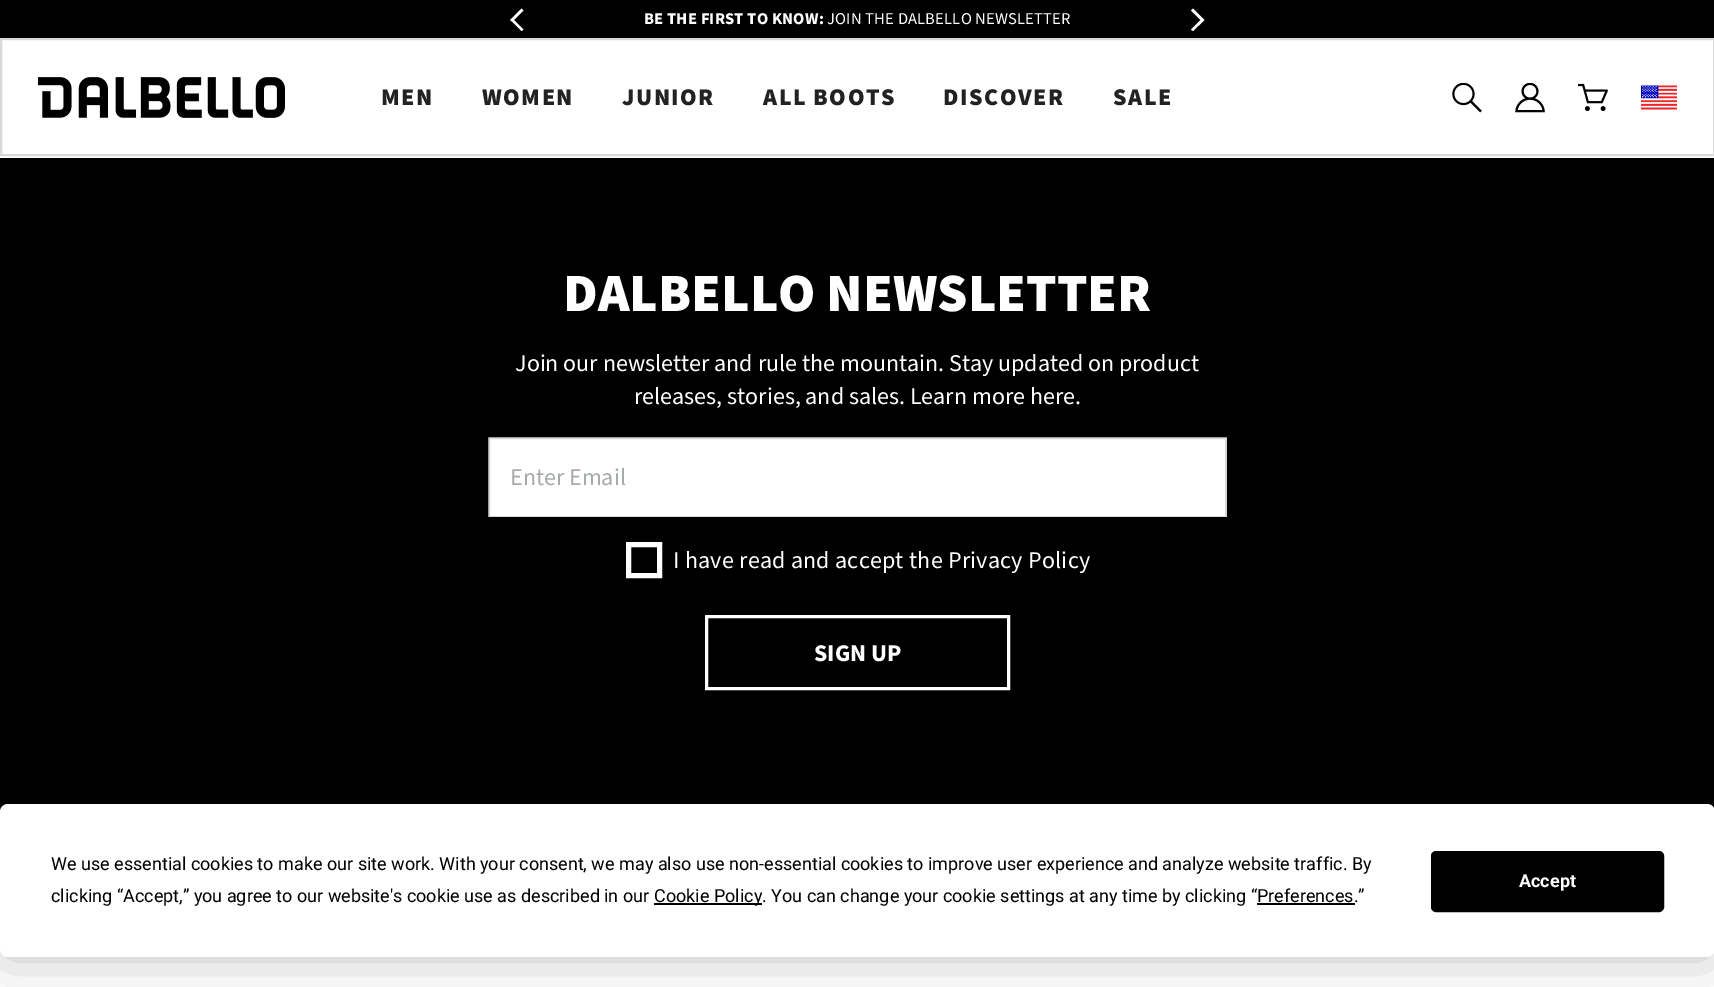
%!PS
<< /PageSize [1714 987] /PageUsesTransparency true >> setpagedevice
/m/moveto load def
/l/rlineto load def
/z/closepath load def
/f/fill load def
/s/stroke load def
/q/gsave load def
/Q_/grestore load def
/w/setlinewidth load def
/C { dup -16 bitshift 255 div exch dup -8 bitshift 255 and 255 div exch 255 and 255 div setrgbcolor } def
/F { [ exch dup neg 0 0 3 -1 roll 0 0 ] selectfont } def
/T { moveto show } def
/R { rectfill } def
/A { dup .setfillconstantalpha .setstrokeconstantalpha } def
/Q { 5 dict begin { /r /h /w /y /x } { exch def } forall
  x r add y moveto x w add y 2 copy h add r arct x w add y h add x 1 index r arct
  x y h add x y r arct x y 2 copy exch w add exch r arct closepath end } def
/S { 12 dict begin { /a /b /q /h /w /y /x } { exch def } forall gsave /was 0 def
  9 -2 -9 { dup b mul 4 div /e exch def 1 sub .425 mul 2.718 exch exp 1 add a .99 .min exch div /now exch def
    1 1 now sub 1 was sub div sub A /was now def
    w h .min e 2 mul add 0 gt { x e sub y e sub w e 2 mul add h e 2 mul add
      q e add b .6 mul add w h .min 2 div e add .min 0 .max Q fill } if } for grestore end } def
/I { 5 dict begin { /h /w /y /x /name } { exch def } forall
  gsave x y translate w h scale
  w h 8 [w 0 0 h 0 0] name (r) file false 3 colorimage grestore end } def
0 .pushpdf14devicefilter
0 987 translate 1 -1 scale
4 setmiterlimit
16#FFFFFF C
0 0 1714 987 R
16#000000 C
0 0 1714 38 R
16#FFFFFF C
512 21.5 m 9.5 9.5 l 2 -1.5 l -9.5 -9.5 l 9.5 -9.5 l -2 -2 l -11.5 11.5 l z f
/SourceSansPro-Bold 16.5 F
644 24 m .2 0 (BE THE FIRST TO KNOW:) ashow
/SourceSansPro-Regular 16.5 F
827 24 m .2 0 (JOIN THE DALBELLO NEWSLETTER) ashow
1202.5 18 m -9.5 -9.5 l -2 2 l 9.5 9.5 l -9.5 9.5 l 2 1.5 l 11.5 -11 l z f
16#D8D8D8 C
2 w
1 39 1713 116 rectstroke
(1.rgb) 38 77 247 41 I
/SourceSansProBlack-Black 24 F
16#222222 C
381 105 m 1.5 0 (MEN) ashow
482 105 m 1.5 0 (WOMEN) ashow
622 105 m 1.5 0 (JUNIOR) ashow
763 105 m 1.5 0 (ALL BOOTS) ashow
943 105 m 1.5 0 (DISCOVER) ashow
1113 105 m 1.5 0 (SALE) ashow
(2.rgb) 1452 83 30 30 I
(3.rgb) 1515 83 30 30 I
(4.rgb) 1578 83 30 29 I
(5.rgb) 1641 85 36 25 I
16#000000 C
0 158 1714 654 R
/SourceSansProBlack-Black 54 F
16#FFFFFF C
(DALBELLO NEWSLETTER) 563 311 T
/SourceSansPro-Regular 24 F
(Join our newsletter and rule the mountain. Stay updated on product) 515 371 T
(releases, stories, and sales. Learn more here.) 634 404 T
489 438 m 737 0 l 0 79 l -737 0 l z q f Q_
16#D8D8D8 C
s
16#000000 C
487 436 741 82 rectstroke
16#A7AAAA C
(Enter Email) 510 485 T
16#FFFFFF C
5 w
628.5 544.5 31 31 rectstroke
673 568 m .25 0 (I have read and accept the Privacy Policy) ashow
3 w
706.5 616.5 302 72 rectstroke
/SourceSansPro-Bold 24 F
(SIGN UP) 814 661 T
16#000000 C
0 804 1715 153 8 26 .25 S
16#FFFFFF C
0 804 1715 153 8 Q f
/Roboto-Regular 18 F
16#000000 C
(We use essential cookies to make our site work. With your consent, we may also use non-essential cookies to improve user experience and analyze website traffic. By) 51 870 T
(clicking “Accept,” you agree to our website's cookie use as described in our) 51 902 T
654 903 108 2 R
(Cookie Policy. You can change your cookie settings at any time by clicking “Preferences.”) 654 902 T
1257 903 98 2 R
1432 852 231 59 4 Q q f Q_
2 w
s
/Roboto-Bold 18 F
16#FFFFFF C
(Accept) 1519 887 T
.poppdf14devicefilter showpage
